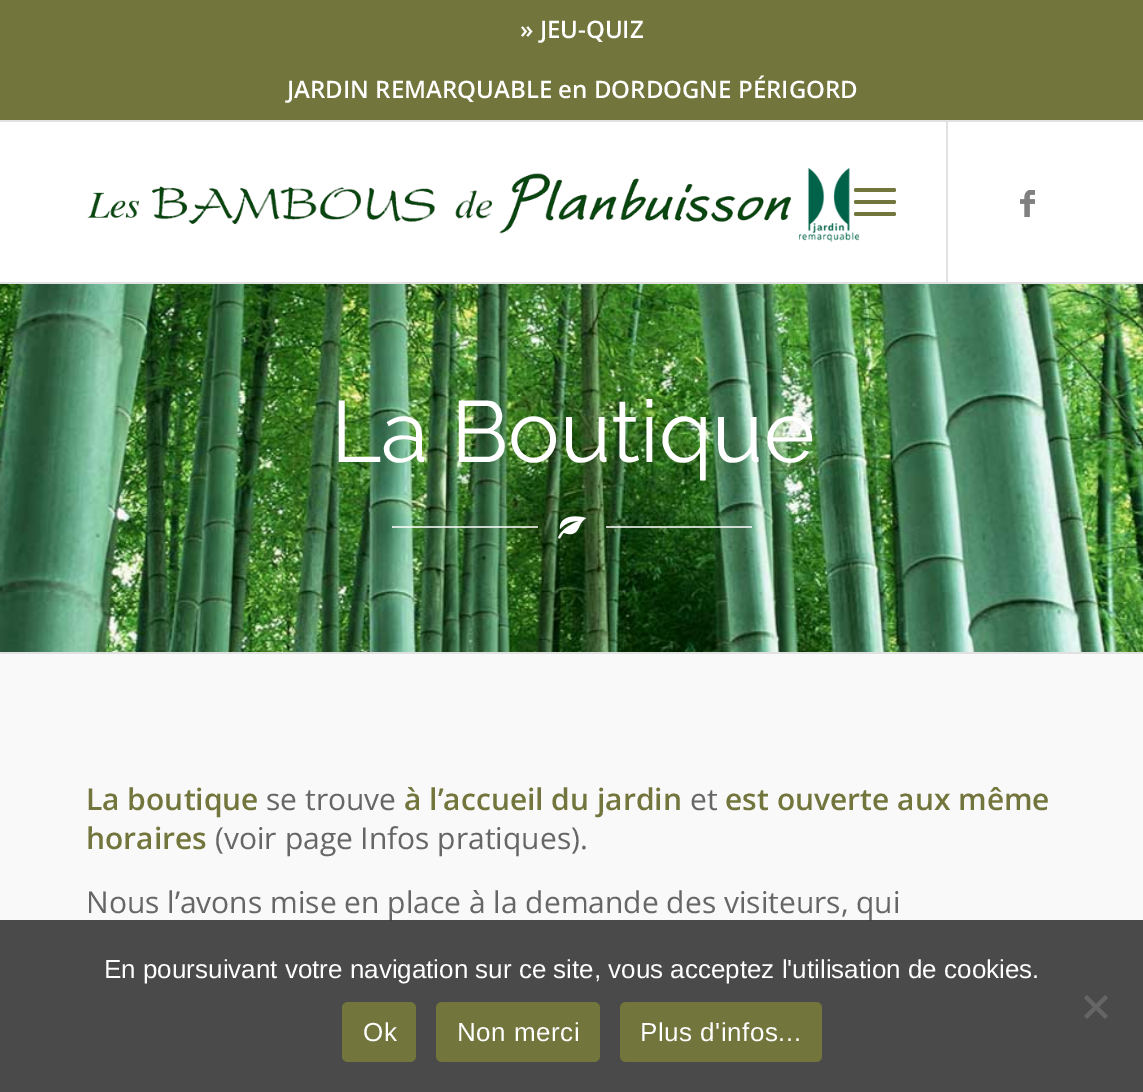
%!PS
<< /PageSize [1143 1092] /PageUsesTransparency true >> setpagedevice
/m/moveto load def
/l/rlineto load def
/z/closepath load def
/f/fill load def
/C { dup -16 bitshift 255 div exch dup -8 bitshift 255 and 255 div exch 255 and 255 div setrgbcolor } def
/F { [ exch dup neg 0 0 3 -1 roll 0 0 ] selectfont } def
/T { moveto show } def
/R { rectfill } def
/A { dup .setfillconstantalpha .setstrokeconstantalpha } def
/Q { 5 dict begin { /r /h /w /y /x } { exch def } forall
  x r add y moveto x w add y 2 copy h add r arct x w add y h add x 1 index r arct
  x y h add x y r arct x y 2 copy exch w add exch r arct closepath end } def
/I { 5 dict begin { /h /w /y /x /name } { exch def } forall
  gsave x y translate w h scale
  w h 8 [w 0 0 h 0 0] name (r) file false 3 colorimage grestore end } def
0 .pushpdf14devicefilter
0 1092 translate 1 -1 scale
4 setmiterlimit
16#FFFFFF C
0 0 1143 1092 R
16#72753C C
0 0 1143 120 R
16#E1E1E1 C
0 120 1143 2 R
/OpenSans-SemiBold 24 F
16#FFFFFF C
(» JEU-QUIZ) 520 38 T
(JARDIN REMARQUABLE en DORDOGNE PÉRIGORD) 287 98 T
16#E1E1E1 C
0 282 1143 2 R
(1.rgb) 87 168 773 74 I
946 122 2 160 R
16#72753C C
854 200 42 4 2 Q f
854 188 42 4 2 Q f
854 212 42 4 2 Q f
(2.rgb) 1020 190 15 27 I
(3.rgb) 1020 190 15 27 I
(4.rgb) 0 284 1143 368 I
/Raleway-Thin 86.5 F
16#FFFFFF C
(La Boutique) 331 462 T
0.76 A
392 526 146 2 R
1 A
(5.rgb) 558 516 29 23 I
0.76 A
606 526 146 2 R
1 A
16#F9F9F9 C
0 654 1143 438 R
16#E1E1E1 C
0 652 1143 2 R
/OpenSans-SemiBold 30 F
16#72753C C
(La boutique) 86 810 T
/OpenSans-Regular 30 F
16#666666 C
(se trouve) 266 810 T
/OpenSans-SemiBold 30 F
16#72753C C
(à l’accueil du jardin) 404 810 T
/OpenSans-Regular 30 F
16#666666 C
(et) 690 810 T
/OpenSans-SemiBold 30 F
16#72753C C
(est ouverte aux même) 725 810 T
(horaires) 86 849 T
/OpenSans-Regular 30 F
16#666666 C
(\(voir page Infos pratiques\).) 215 849 T
(Nous l’avons mise en place à la demande des visiteurs, qui) 86 913 T
0.7 A
16#000000 C
0 920 1143 172 R
/LiberationSans-Regular 26 F
1 A
16#FFFFFF C
(En poursuivant votre navigation sur ce site, vous acceptez l'utilisation de cookies.) 104 978 T
16#656565 C
1105 995 m 3 3 l -21 21 l -3 -3 l z f
1084 998 m 3 -3 l 21 21 l -3 3 l z f
16#72753C C
342 1002 74 60 6 Q f
16#FFFFFF C
363 1041 m .5 0 (Ok) ashow
16#72753C C
436 1002 164 60 6 Q f
16#FFFFFF C
457 1041 m .5 0 (Non merci) ashow
16#72753C C
620 1002 202 60 6 Q f
16#FFFFFF C
640 1041 m .5 0 (Plus d'infos...) ashow
.poppdf14devicefilter showpage
